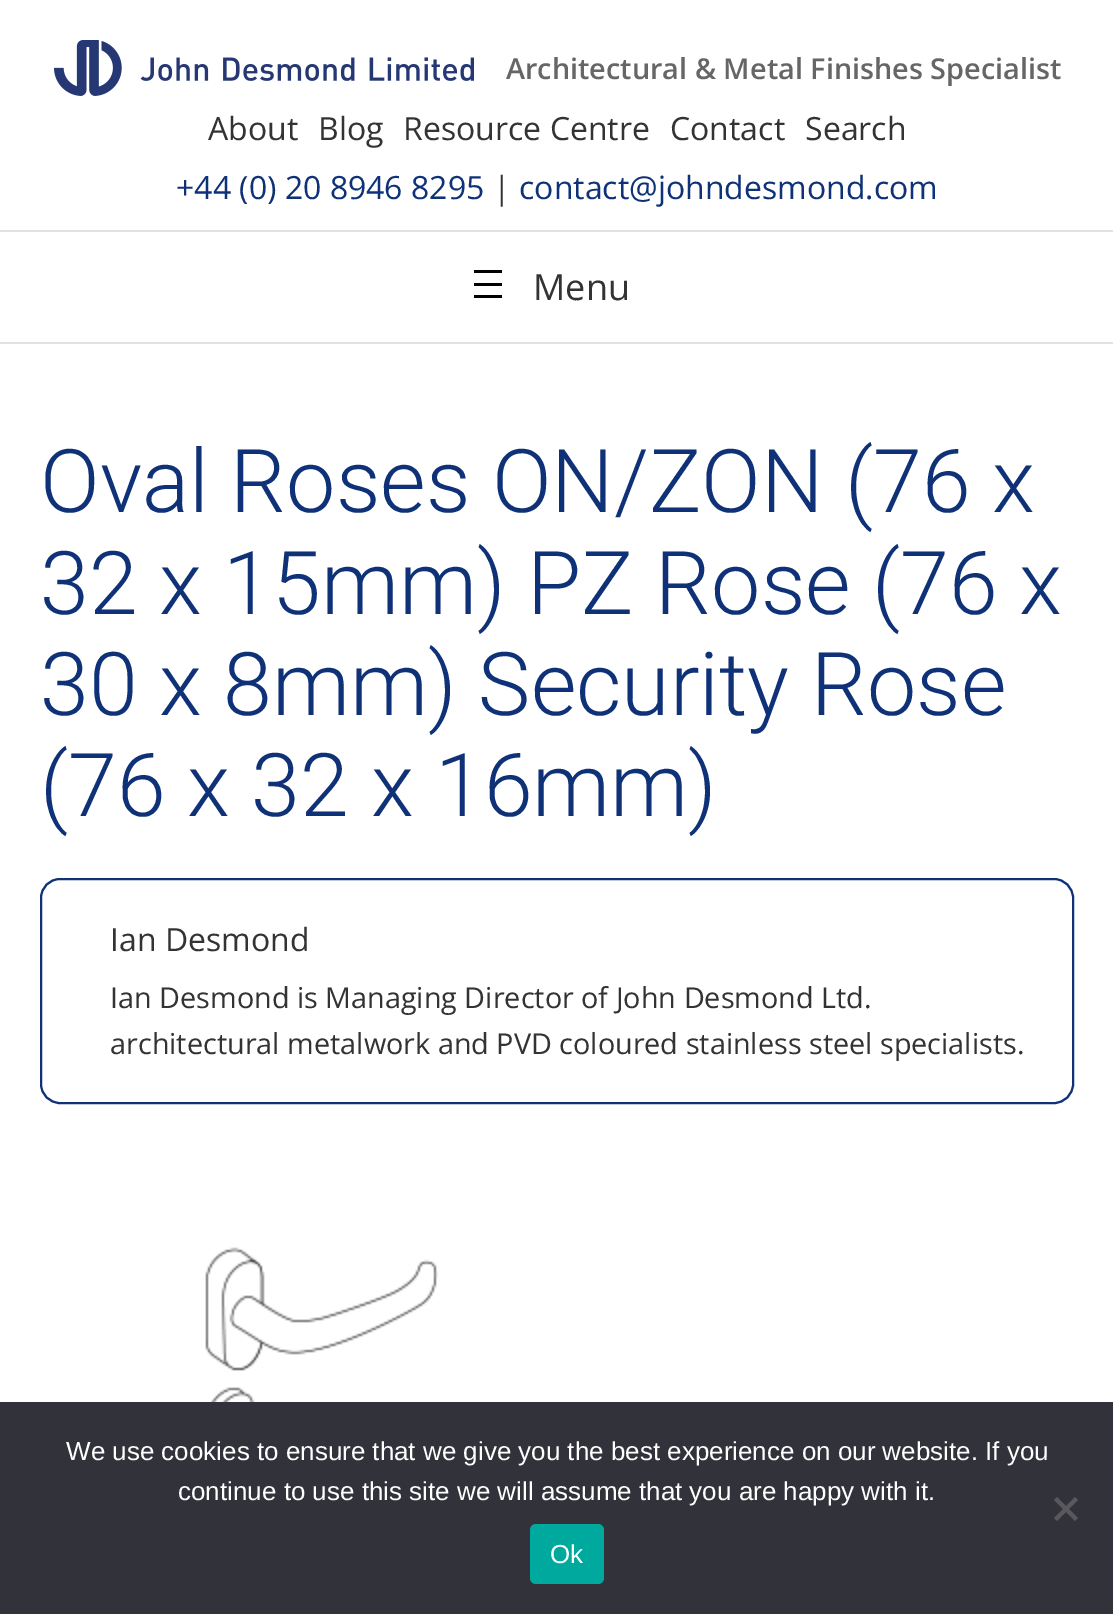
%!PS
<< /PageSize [1113 1614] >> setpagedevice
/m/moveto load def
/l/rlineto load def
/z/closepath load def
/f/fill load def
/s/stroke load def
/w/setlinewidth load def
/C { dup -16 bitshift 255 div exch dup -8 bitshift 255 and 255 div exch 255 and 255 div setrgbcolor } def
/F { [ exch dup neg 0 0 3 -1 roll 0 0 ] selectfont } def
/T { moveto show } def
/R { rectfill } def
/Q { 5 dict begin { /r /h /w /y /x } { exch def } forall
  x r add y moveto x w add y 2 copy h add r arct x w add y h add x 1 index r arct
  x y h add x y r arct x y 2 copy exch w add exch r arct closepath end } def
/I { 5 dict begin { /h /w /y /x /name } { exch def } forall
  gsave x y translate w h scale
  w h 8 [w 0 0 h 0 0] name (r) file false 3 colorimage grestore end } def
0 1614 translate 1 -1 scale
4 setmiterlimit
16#FFFFFF C
0 0 1113 1614 R
(1.rgb) 54 40 420 56 I
/OpenSans-SemiBold 28.8 F
16#666666 C
(Architectural & Metal Finishes Specialist) 506 79 T
/OpenSans-Regular 32 F
16#333333 C
(About) 208 140 T
(Blog) 318 140 T
(Resource Centre) 403 140 T
(Contact) 670 140 T
(Search) 805 140 T
16#0E3177 C
(+44 \(0\) 20 8946 8295) 176 199 T
16#333333 C
(|) 493 199 T
16#0E3177 C
(contact@johndesmond.com) 519 199 T
16#DEE2E6 C
0 230 1113 2 R
16#000000 C
474 270 28 3 R
474 283 28 3 R
474 295 28 3 R
/OpenSans-Regular 36 F
16#333333 C
(Menu) 533 300 T
16#DEE2E6 C
0 342 1113 2 R
/Roboto-Light 88 F
16#0E3177 C
(Oval Roses ON/ZON \(76 x) 40 512 T
(32 x 15mm\) PZ Rose \(76 x) 40 614 T
(30 x 8mm\) Security Rose) 40 715 T
(\(76 x 32 x 16mm\)) 40 816 T
2 w
41 879 1032 224 19 Q s
/OpenSans-Regular 32 F
16#333333 C
(Ian Desmond) 110 951 T
/OpenSans-Regular 28.8 F
(Ian Desmond is Managing Director of John Desmond Ltd.) 110 1008 T
(architectural metalwork and PVD coloured stainless steel specialists.) 110 1054 T
(2.rgb) 205 1247 234 155 I
16#32323A C
0 1402 1113 212 R
/LiberationSans-Regular 26 F
16#FFFFFF C
(We use cookies to ensure that we give you the best experience on our website. If you) 66 1460 T
(continue to use this site we will assume that you are happy with it.) 178 1500 T
16#59595D C
1075 1497 m 3 3 l -21 21 l -3 -3 l z f
1054 1500 m 3 -3 l 21 21 l -3 3 l z f
16#00A99D C
530 1524 74 60 6 Q f
16#FFFFFF C
(Ok) 550 1563 T
showpage
